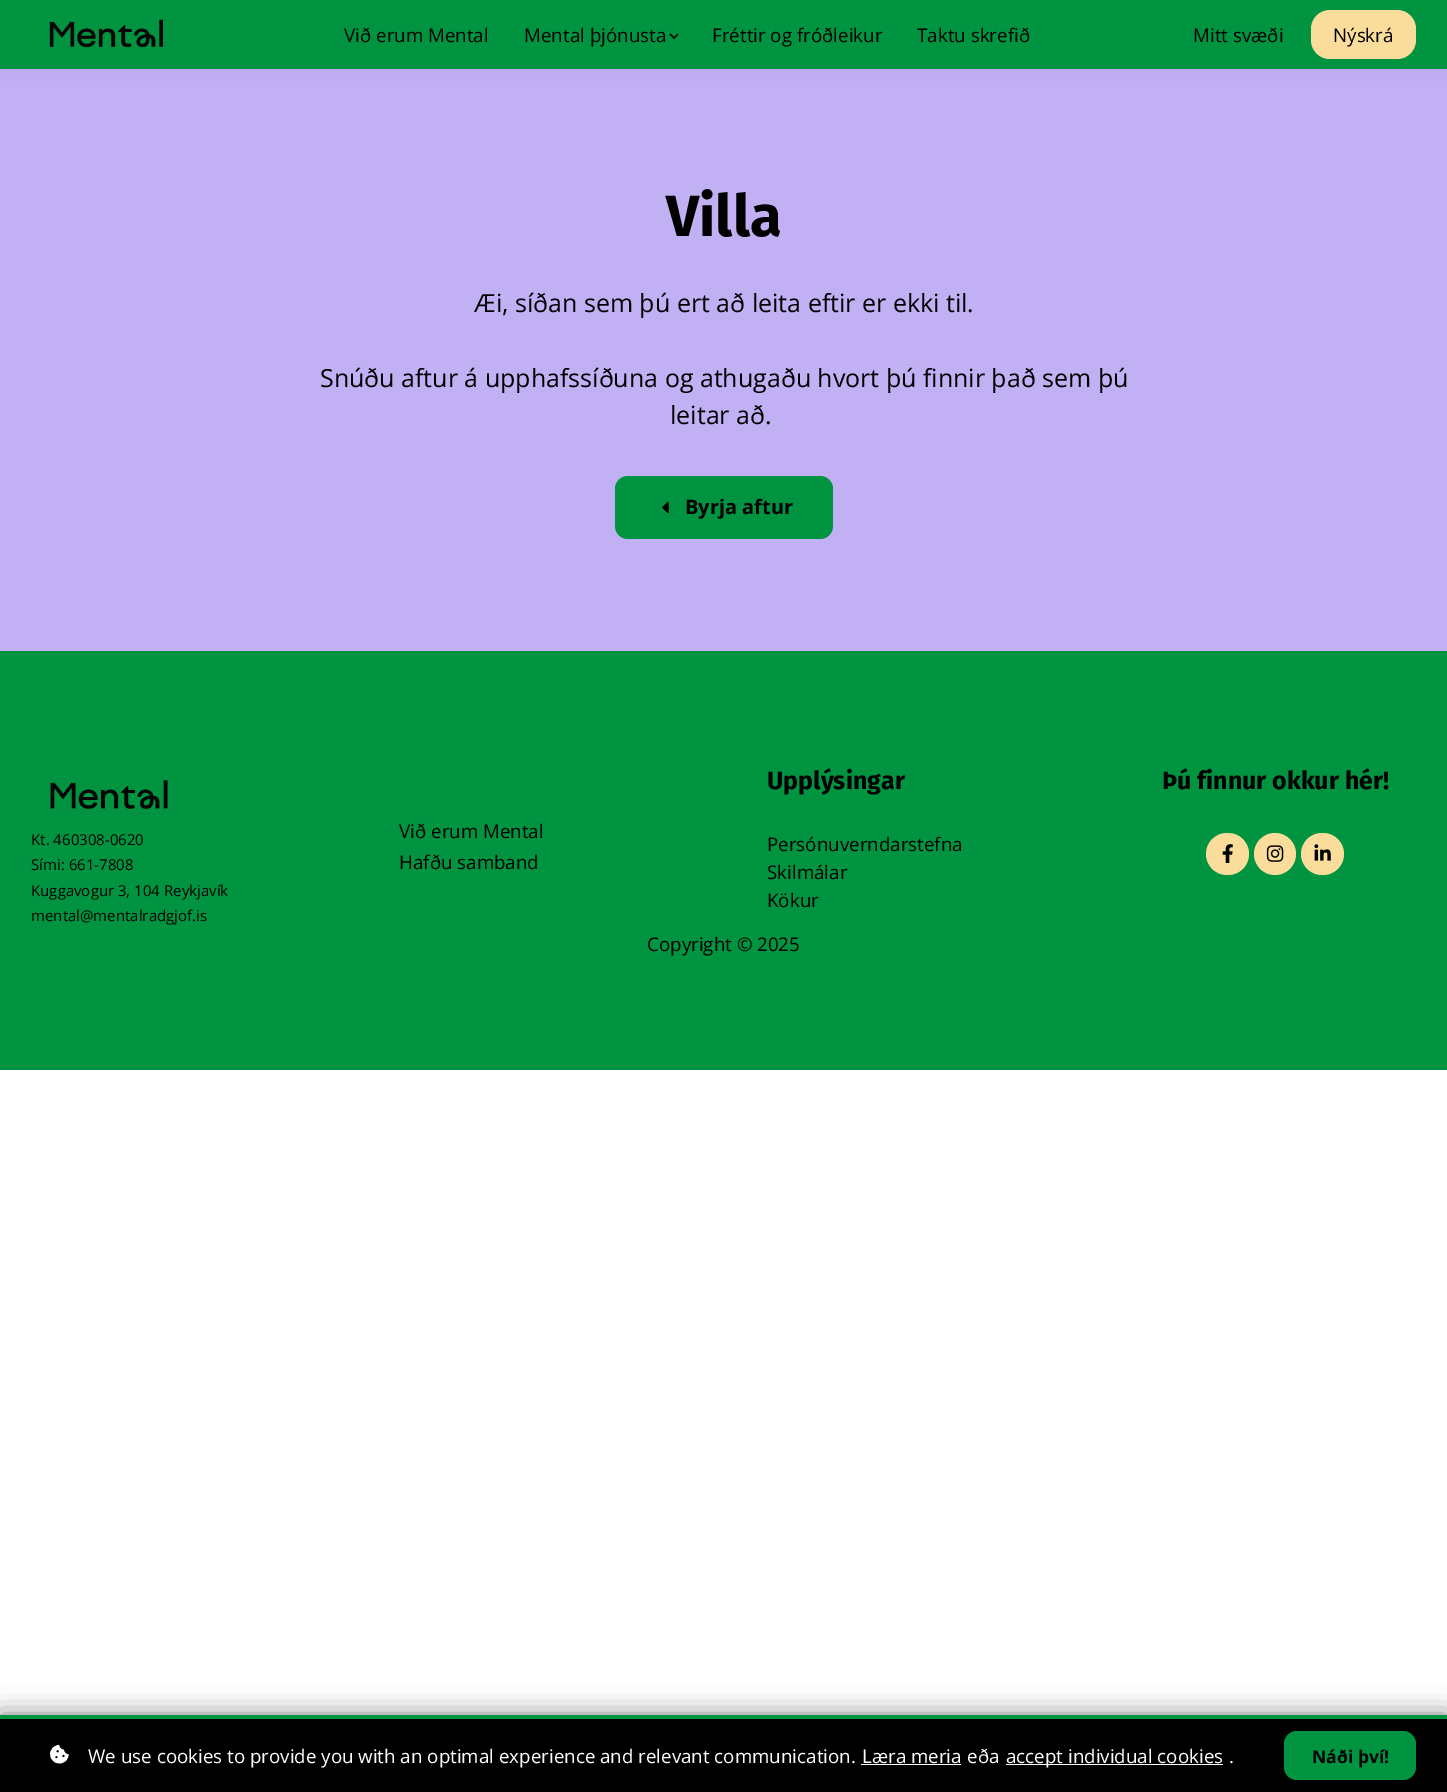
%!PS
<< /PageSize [1447 1792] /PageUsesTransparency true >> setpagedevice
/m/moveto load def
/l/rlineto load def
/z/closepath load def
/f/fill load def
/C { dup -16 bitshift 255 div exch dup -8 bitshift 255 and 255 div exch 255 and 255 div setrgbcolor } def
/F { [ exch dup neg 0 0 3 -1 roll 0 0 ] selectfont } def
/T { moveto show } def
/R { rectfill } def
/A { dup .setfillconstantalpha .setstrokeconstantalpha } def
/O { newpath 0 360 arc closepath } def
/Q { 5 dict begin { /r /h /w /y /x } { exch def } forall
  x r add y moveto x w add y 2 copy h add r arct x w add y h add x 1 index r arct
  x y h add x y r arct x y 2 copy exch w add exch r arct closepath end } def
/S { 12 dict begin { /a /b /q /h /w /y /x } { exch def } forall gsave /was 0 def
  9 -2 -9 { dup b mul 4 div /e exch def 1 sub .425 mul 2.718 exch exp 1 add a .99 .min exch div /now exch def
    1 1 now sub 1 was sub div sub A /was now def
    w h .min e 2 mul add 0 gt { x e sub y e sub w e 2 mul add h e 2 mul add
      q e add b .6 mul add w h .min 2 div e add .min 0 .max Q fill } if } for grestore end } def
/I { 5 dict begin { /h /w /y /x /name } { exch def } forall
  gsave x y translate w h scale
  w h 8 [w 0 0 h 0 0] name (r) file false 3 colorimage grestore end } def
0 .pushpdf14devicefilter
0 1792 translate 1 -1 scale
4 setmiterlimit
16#FFFFFF C
0 0 1447 1792 R
16#C2B0F5 C
0 69 1447 582 R
16#000000 C
0 0 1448 69 0 9.5 .05 S
16#009441 C
0 0 1447 69 R
(1.rgb) 49 19 114 29 I
/OpenSans-Regular 18.75 F
16#000000 C
(Við erum Mental) 344 42 T
(Mental þjónusta) 524 42 T
678.5 34.5 m -4.5 4.5 l -1 -1 l 4.5 -4.5 l z f
675 38 m -1 1 l -4.5 -4.5 l 1 -1 l z f
(Fréttir og fróðleikur) 712 42 T
(Taktu skrefið) 917 42 T
(Mitt svæði) 1193 42 T
16#FADD9B C
1311 10 105 49 19 Q f
16#000000 C
(Nýskrá) 1333 42 T
/FiraSans-Bold 58 F
(Villa) 666 236 T
/OpenSans-Regular 25 F
(Æi, síðan sem þú ert að leita eftir er ekki til.) 474 312 T
(Snúðu aftur á upphafssíðuna og athugaðu hvort þú finnir það sem þú) 320 387 T
(leitar að.) 670 424 T
16#009441 C
615 476 218 63 13 Q f
(2.rgb) 662 501 7 13 I
/OpenSans-Bold 20 F
16#000000 C
(Byrja aftur) 685 514 T
16#009441 C
0 651 1447 419 R
/FiraSans-Bold 25 F
16#000000 C
(Upplýsingar) 767 789 T
/OpenSans-Regular 18.75 F
(Persónuverndarstefna) 767 851 T
(Skilmálar) 767 879 T
(Kökur) 767 907 T
/FiraSans-Bold 25 F
(Þú finnur okkur hér!) 1162 789 T
16#FADD9B C
1206 833 43 42 21 Q f
(3.rgb) 1222 844 11 19 I
1275 854 21 O f
(4.rgb) 1266 845 18 17 I
1301 833 43 42 21 Q f
(5.rgb) 1314 844 17 17 I
(6.rgb) 50 780 118 29 I
/OpenSans-Regular 15 F
16#000000 C
(Kt. 460308-0620) 31 845 T
(Sími: 661-7808) 31 870 T
(Kuggavogur 3, 104 Reykjavík) 31 896 T
(mental@mentalradgjof.is) 31 921 T
/OpenSans-Regular 18.75 F
(Við erum Mental) 399 838 T
(Hafðu samband) 399 869 T
(Copyright © 2025) 647 951 T
0 1715 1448 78 0 12.5 .5 S
0 1719 1447 73 R
16#009441 C
0 1715 1447 4 R
(7.rgb) 50 1744 19 20 I
16#FFFFFF C
(We use cookies to provide you with an optimal experience and relevant communication.) 88 1763 T
(Læra meria) 862 1763 T
861 1764 100 1 R
(eða) 967 1763 T
1006 1764 217 1 R
(accept individual cookies) 1006 1763 T
(.) 1229 1763 T
16#009441 C
1284 1731 132 49 13 Q f
/OpenSans-Bold 17.5 F
16#000000 C
(Náði því!) 1312 1763 T
.poppdf14devicefilter showpage
